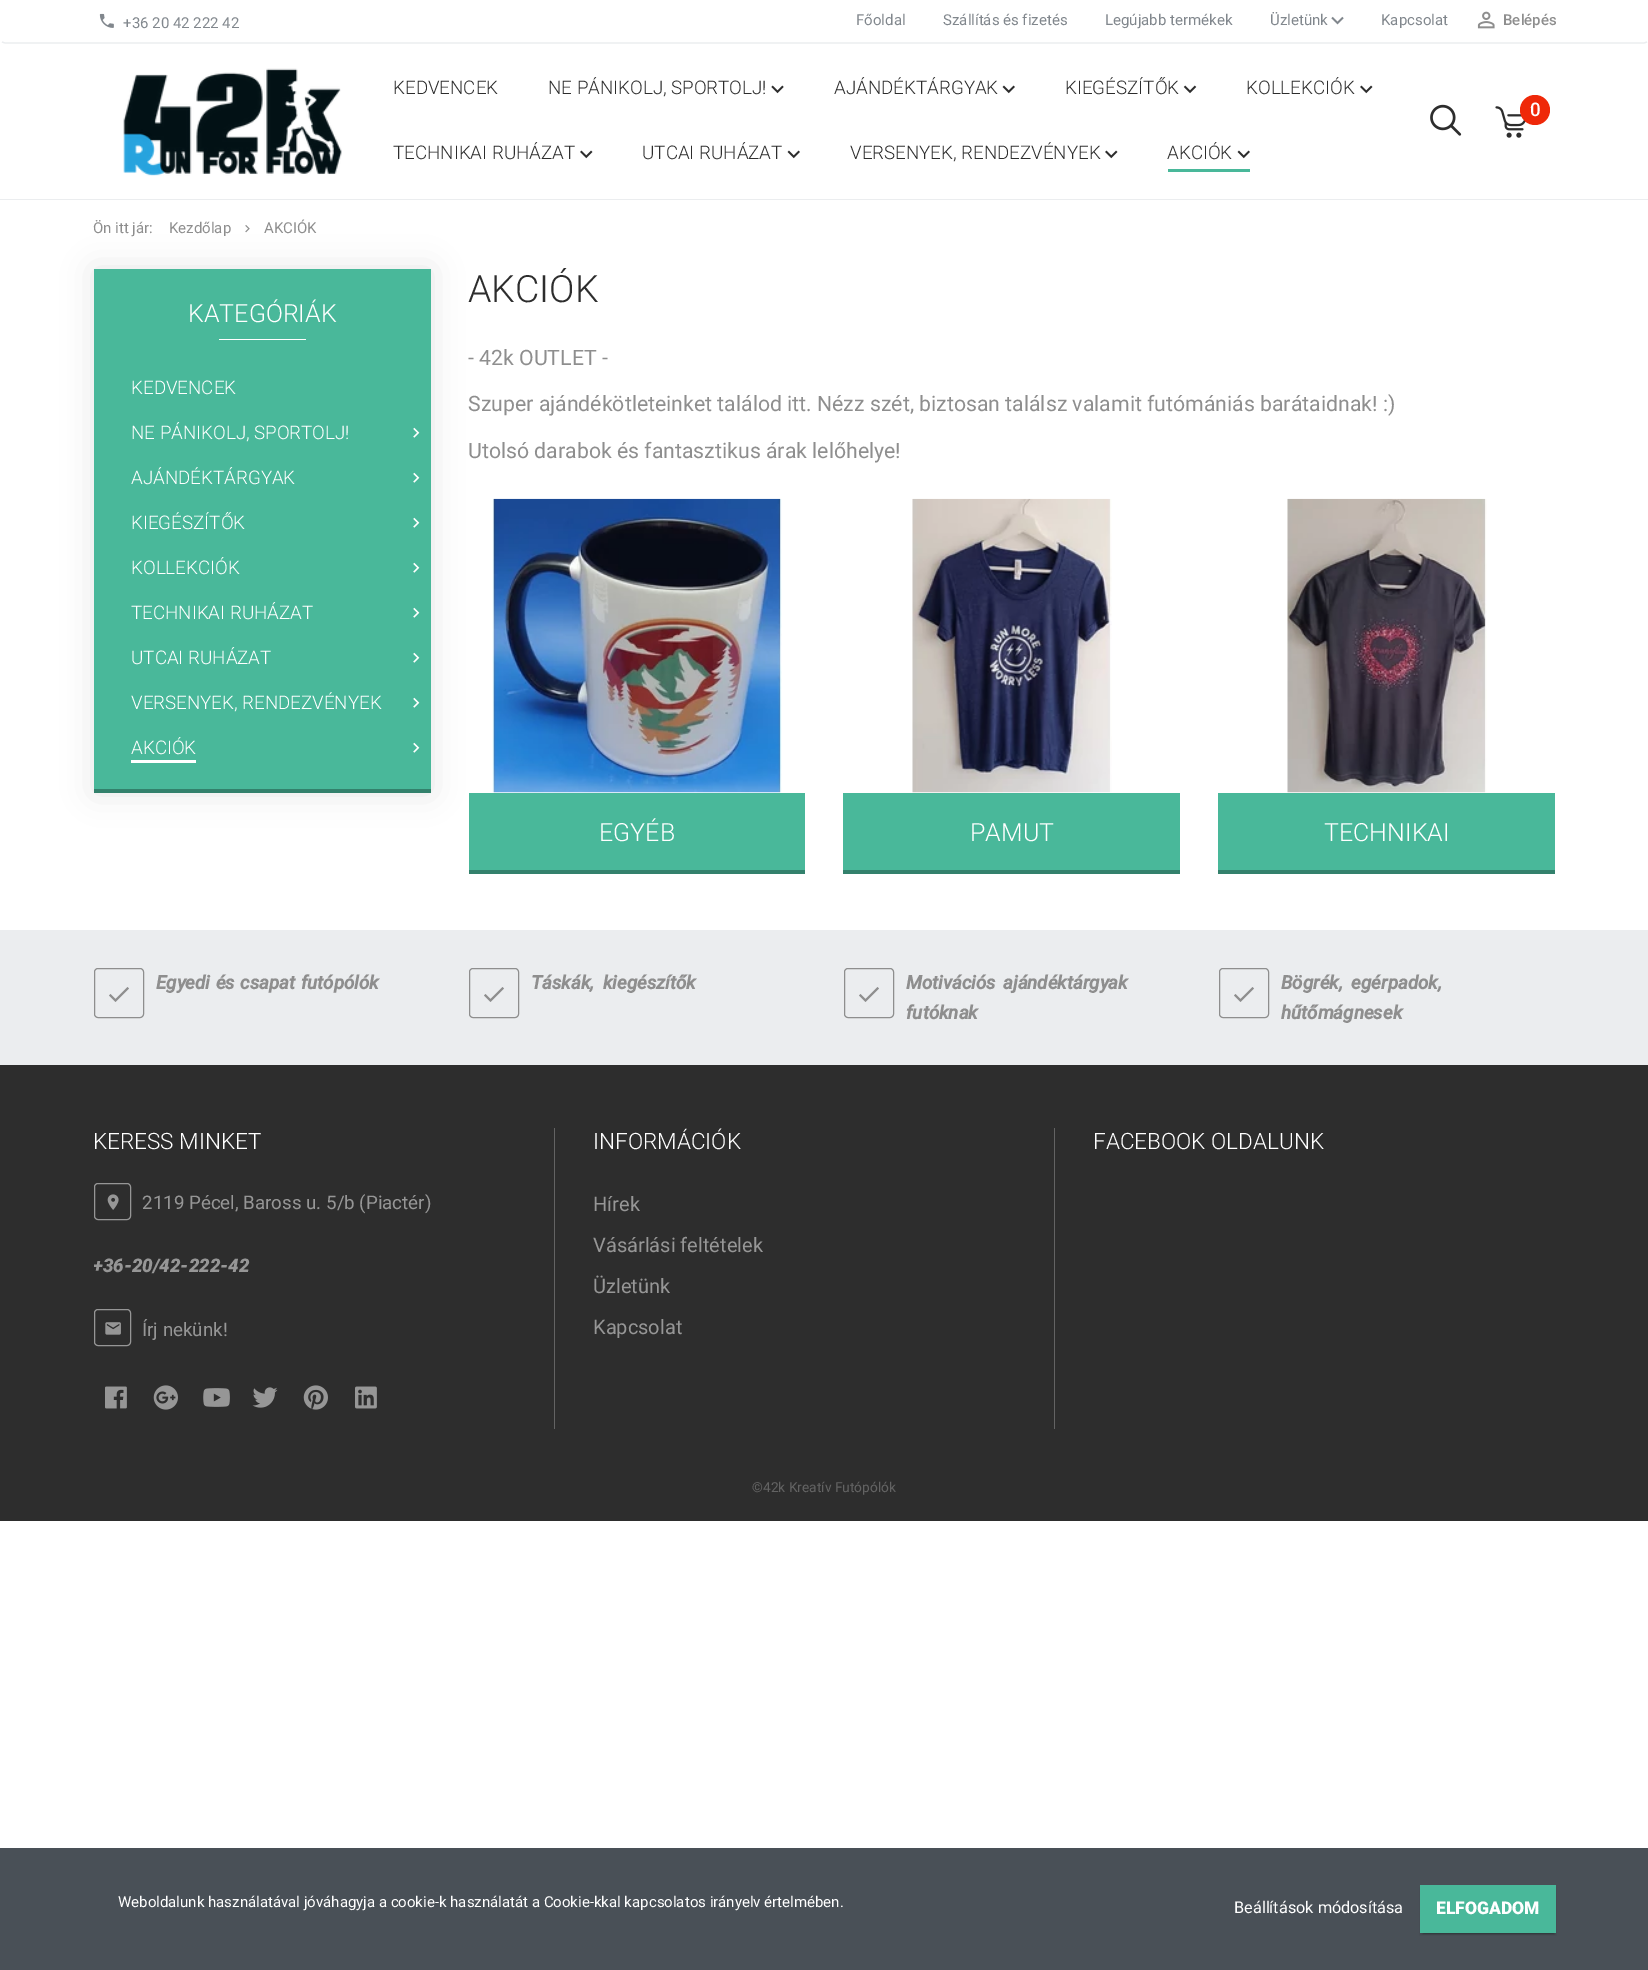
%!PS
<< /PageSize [1648 1970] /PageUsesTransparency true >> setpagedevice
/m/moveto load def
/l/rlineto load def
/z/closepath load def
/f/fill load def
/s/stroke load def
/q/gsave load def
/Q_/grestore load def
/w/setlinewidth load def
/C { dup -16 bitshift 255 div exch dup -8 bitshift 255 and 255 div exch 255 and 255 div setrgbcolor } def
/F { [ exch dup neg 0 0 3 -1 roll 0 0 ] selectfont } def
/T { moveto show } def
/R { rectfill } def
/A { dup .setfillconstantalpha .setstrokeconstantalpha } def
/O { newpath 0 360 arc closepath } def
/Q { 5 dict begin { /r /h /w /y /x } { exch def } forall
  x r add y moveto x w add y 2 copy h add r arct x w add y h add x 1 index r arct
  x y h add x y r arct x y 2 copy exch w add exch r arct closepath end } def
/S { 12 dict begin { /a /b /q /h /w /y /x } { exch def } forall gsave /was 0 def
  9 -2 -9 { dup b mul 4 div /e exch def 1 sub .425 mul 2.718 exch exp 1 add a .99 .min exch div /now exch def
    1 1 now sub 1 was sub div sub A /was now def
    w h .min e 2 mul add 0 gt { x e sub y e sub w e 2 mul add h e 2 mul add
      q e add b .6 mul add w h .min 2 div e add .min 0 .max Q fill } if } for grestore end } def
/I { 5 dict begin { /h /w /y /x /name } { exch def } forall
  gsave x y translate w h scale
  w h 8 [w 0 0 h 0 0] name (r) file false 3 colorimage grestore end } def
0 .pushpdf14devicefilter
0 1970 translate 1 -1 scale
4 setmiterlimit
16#FFFFFF C
0 0 1648 1970 R
16#EBEDEF C
1.2 w
1647 42 m -3 1 l -1639 0 l -3 -1 l s
(1.rgb) 99 13 15 15 I
/Roboto-Regular 15 F
16#81878D C
(+36 20 42 222 42) 123 28 T
(Főoldal) 856 25 T
(Szállítás és fizetés) 943 25 T
(Legújabb termékek) 1105 25 T
(Üzletünk) 1270 25 T
(2.rgb) 1331 16 13 9 I
(Kapcsolat) 1381 25 T
(3.rgb) 1477 11 18 18 I
/Roboto-Medium 15 F
16#8E8E8E C
(Belépés) 1503 25 T
16#EBEDEF C
0 199 1648 1 R
(4.rgb) 123 68 219 108 I
/Roboto-Light 18.75 F
16#2D2D2D C
(KEDVENCEK) 393 94 T
(NE PÁNIKOLJ, SPORTOLJ!) 548 94 T
(5.rgb) 771 85 13 9 I
(AJÁNDÉKTÁRGYAK) 834 94 T
(6.rgb) 1002 85 13 9 I
(KIEGÉSZÍTŐK) 1065 94 T
(7.rgb) 1183 85 14 9 I
(KOLLEKCIÓK) 1246 94 T
(8.rgb) 1360 85 13 9 I
(TECHNIKAI RUHÁZAT) 393 159 T
(8.rgb) 580 150 13 9 I
(UTCAI RUHÁZAT) 642 159 T
(6.rgb) 787 150 13 9 I
(VERSENYEK, RENDEZVÉNYEK) 850 159 T
(8.rgb) 1105 150 13 9 I
(AKCIÓK) 1167 159 T
(6.rgb) 1237 150 13 9 I
16#49B89A C
1168 169 82 3 R
(9.rgb) 1430 104 32 32 I
(10.rgb) 1495 106 31 32 I
16#EF2809 C
1535 110 15 O f
/Roboto-Medium 18.75 F
16#FFFFFF C
(0) 1530 116 T
/Roboto-Regular 15 F
16#8E8E8E C
(Ön itt jár:) 93 233 T
(Kezdőlap) 169 233 T
(11.rgb) 245 225 5 8 I
(AKCIÓK) 264 233 T
16#49B89A C
469 793 336 77 R
16#000000 C
94 269 337 524 0 15.5 .1 S
16#49B89A C
94 269 337 520 R
16#33816C C
94 789 337 4 R
/Roboto-Light 25 F
16#FFFFFF C
(KATEGÓRIÁK) 188 322 T
219 339 87 1 R
/Roboto-Light 18.75 F
(KEDVENCEK) 131 394 T
(NE PÁNIKOLJ, SPORTOLJ!) 131 439 T
(12.rgb) 413 427 7 11 I
(AJÁNDÉKTÁRGYAK) 131 484 T
(12.rgb) 413 472 7 11 I
(KIEGÉSZÍTŐK) 131 529 T
(12.rgb) 413 517 7 11 I
(KOLLEKCIÓK) 131 574 T
(12.rgb) 413 562 7 11 I
(TECHNIKAI RUHÁZAT) 131 619 T
(12.rgb) 413 607 7 11 I
(UTCAI RUHÁZAT) 131 664 T
(12.rgb) 413 652 7 11 I
(VERSENYEK, RENDEZVÉNYEK) 131 709 T
(12.rgb) 413 697 7 11 I
(AKCIÓK) 131 754 T
131 760 65 3 R
(12.rgb) 413 742 7 11 I
/Roboto-Light 37.5 F
16#2D2D2D C
(AKCIÓK) 468 302 T
/Roboto-Regular 21.25 F
16#8E8E8E C
(- 42k OUTLET -) 468 365 T
(Szuper ajándékötleteinket találod itt. Nézz szét, biztosan találsz valamit futómániás barátaidnak! :\)) 468 411 T
(Utolsó darabok és fantasztikus árak lelőhelye!) 468 458 T
(13.rgb) 492 498 290 295 I
16#33816C C
469 870 336 4 R
/Roboto-Light 25 F
16#FFFFFF C
(EGYÉB) 599 841 T
(14.rgb) 912 498 200 295 I
16#49B89A C
843 793 337 77 R
16#33816C C
843 870 337 4 R
16#FFFFFF C
(PAMUT) 970 841 T
(15.rgb) 1287 498 200 295 I
16#49B89A C
1218 793 337 77 R
16#33816C C
1218 870 337 4 R
16#FFFFFF C
(TECHNIKAI) 1324 841 T
16#EBEDEF C
0 930 1648 135 R
16#8E8E8E C
1 w
94.5 968.5 49 49 3.5 Q s
115.5 999 m -5 -5 l -1.5 1.5 l 6.5 6.5 l 13.5 -13.5 l -1.5 -1.5 l z f
/Roboto-BoldItalic 18.75 F
156 989 m 1 0 32 (Egyedi és csapat futópólók) widthshow
469.5 968.5 49 49 3.5 Q s
490.5 999 m -5 -5 l -1.5 1.5 l 6.5 6.5 l 13.5 -13.5 l -1.5 -1.5 l z f
531 989 m 4 0 32 (Táskák, kiegészítők) widthshow
844.5 968.5 49 49 3.5 Q s
865.5 999 m -5 -5 l -1.5 1.5 l 6.5 6.5 l 13.5 -13.5 l -1.5 -1.5 l z f
906 989 m 3 0 32 (Motivációs ajándéktárgyak) widthshow
(futóknak) 906 1019 T
1219.5 968.5 49 49 3.5 Q s
1240.5 999 m -5 -5 l -1.5 1.5 l 6.5 6.5 l 13.5 -13.5 l -1.5 -1.5 l z f
1281 989 m 4 0 32 (Bögrék, egérpadok,) widthshow
(hűtőmágnesek) 1281 1019 T
16#2D2D2D C
0 1065 1648 456 R
16#636363 C
554 1128 1 301 R
/Roboto-Light 22.5 F
16#FFFFFF C
(KERESS MINKET) 93 1149 T
16#969696 C
94.5 1183.5 36 36 3.5 Q s
(16.rgb) 107 1194 12 16 I
/Roboto-Regular 18.75 F
(2119 Pécel, Baross u. 5/b \(Piactér\)) 142 1209 T
q
94 1158 460 258 rectclip
/Roboto-BlackItalic 18.75 F
(+36-20/42-222-42) 93 1272 T
Q_
94.5 1309.5 36 36 3.5 Q s
(17.rgb) 105 1322 16 13 I
(Írj nekünk!) 142 1336 T
(18.rgb) 105 1386 22 23 I
(19.rgb) 153 1385 25 25 I
(20.rgb) 203 1388 27 19 I
(21.rgb) 252 1387 26 21 I
(22.rgb) 303 1385 25 25 I
(23.rgb) 355 1386 22 23 I
16#636363 C
1054 1128 1 301 R
/Roboto-Light 22.5 F
16#FFFFFF C
(INFORMÁCIÓK) 593 1149 T
/Roboto-Regular 20 F
16#969696 C
(Hírek) 593 1211 T
(Vásárlási feltételek) 593 1252 T
(Üzletünk) 593 1293 T
(Kapcsolat) 593 1334 T
/Roboto-Light 22.5 F
16#FFFFFF C
(FACEBOOK OLDALUNK) 1093 1149 T
/Roboto-Regular 13.75 F
16#636363 C
(©42k Kreatív Futópólók) 752 1492 T
16#495057 C
0 1848 1648 122 R
/Roboto-Regular 15 F
16#FFFFFF C
(Weboldalunk használatával jóváhagyja a cookie-k használatát a Cookie-kkal kapcsolatos irányelv értelmében.) 118 1907 T
/Roboto-Regular 16.25 F
(Beállítások módosítása) 1234 1913 T
16#000000 C
1423 1891 131 43 0 .5 .2 S
1420 1888 136 47 0 1 .14 S
16#49B89A C
1420 1885 136 48 R
/Roboto-Black 17.5 F
16#FFFFFF C
(ELFOGADOM) 1436 1914 T
.poppdf14devicefilter showpage
